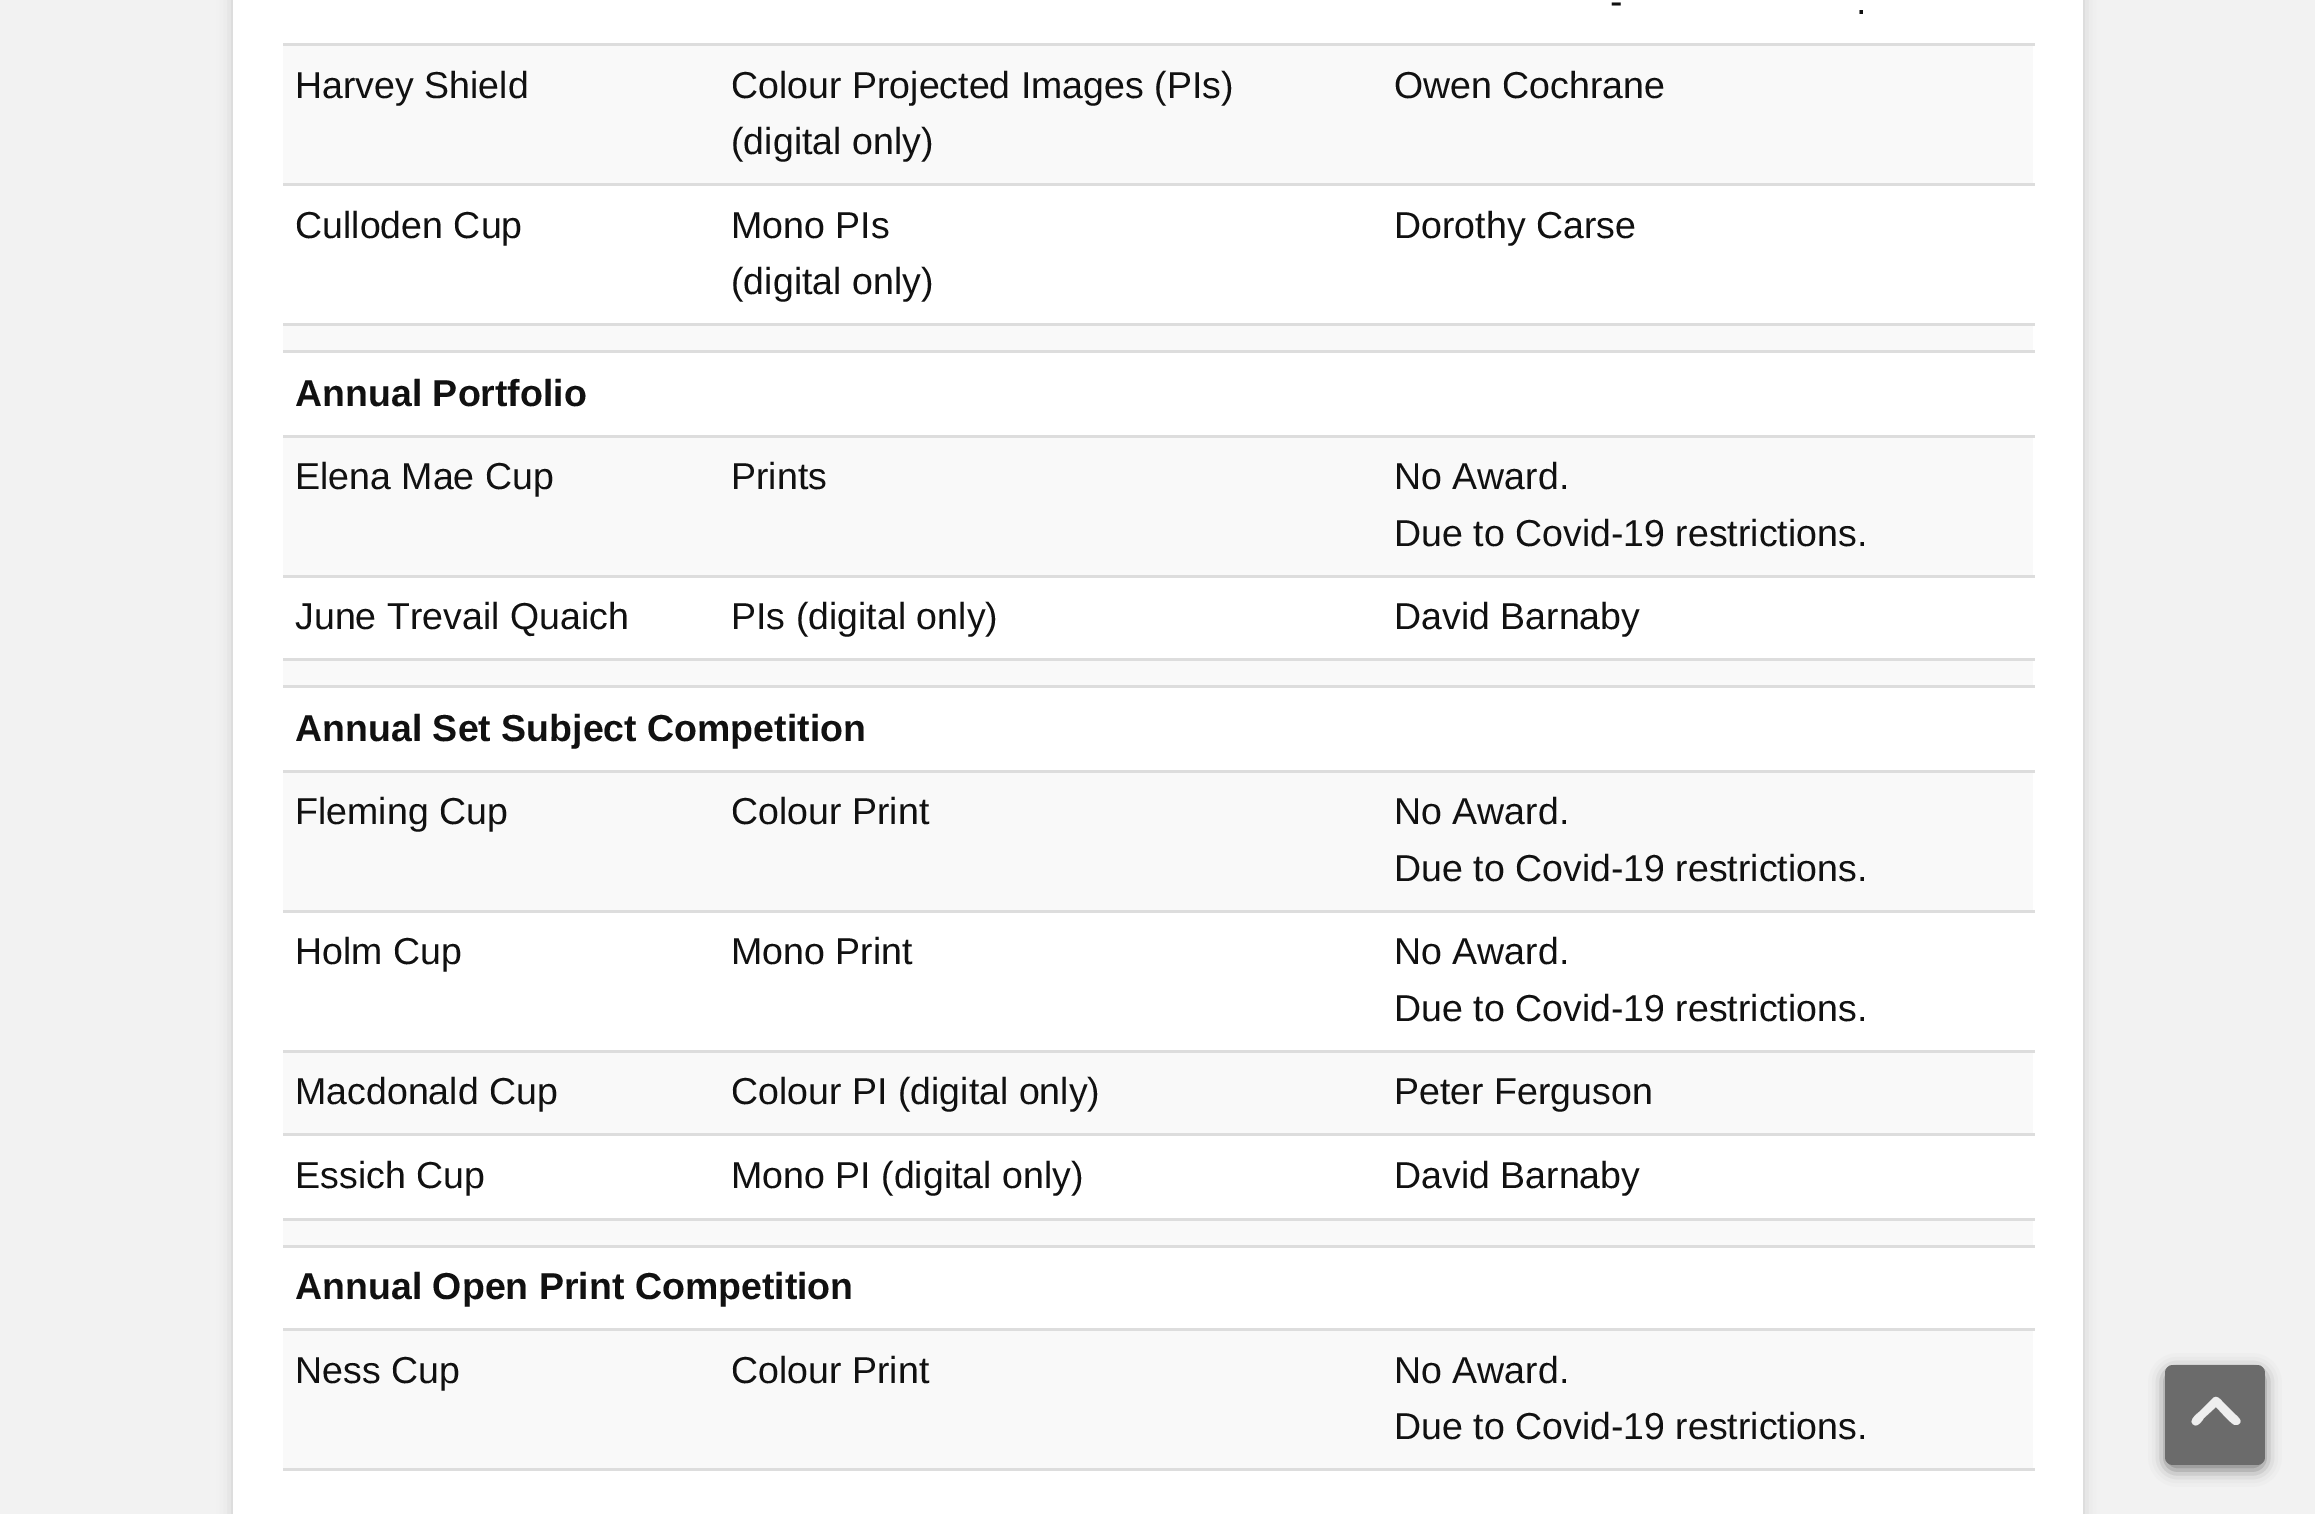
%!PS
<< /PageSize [2315 1514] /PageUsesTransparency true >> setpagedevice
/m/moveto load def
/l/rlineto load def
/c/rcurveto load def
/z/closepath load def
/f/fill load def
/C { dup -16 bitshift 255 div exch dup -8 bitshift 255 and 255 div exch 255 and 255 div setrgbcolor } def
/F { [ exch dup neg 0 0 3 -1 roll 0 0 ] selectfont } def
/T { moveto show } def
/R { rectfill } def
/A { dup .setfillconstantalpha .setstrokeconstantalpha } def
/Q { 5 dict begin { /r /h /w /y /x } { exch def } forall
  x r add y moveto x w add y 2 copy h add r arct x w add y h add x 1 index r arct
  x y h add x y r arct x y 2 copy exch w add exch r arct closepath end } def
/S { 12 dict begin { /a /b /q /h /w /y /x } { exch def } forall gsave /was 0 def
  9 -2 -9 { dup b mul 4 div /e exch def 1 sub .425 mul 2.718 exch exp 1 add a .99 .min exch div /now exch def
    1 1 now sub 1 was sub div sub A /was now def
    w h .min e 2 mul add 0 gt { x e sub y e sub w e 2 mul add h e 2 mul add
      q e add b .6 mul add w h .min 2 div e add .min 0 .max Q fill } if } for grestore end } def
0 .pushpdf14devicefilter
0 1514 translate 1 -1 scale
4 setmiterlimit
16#F2F2F2 C
0 0 2315 1514 R
16#646464 C
233 -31 1850 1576 8 7.5 .3 S
16#FFFFFF C
233 0 1850 1514 R
/LiberationSans-Regular 37.5 F
16#111111 C
(-) 1610 14 T
(.) 1856 14 T
16#F9F9F9 C
283 46 1750 137 R
16#111111 C
(Harvey Shield) 295 98 T
(Colour Projected Images \(PIs\)) 731 98 T
(\(digital only\)) 731 154 T
16#DDDDDD C
283 43 1752 3 R
16#111111 C
(Owen Cochrane) 1394 98 T
(Culloden Cup) 295 238 T
(Mono PIs) 731 238 T
(\(digital only\)) 731 294 T
16#DDDDDD C
283 183 1752 3 R
16#111111 C
(Dorothy Carse) 1394 238 T
16#DDDDDD C
283 323 1752 3 R
16#F9F9F9 C
283 326 1750 24 R
16#DDDDDD C
283 350 1752 3 R
/LiberationSans-Bold 37.5 F
16#111111 C
(Annual Portfolio) 295 406 T
16#F9F9F9 C
283 438 1750 137 R
/LiberationSans-Regular 37.5 F
16#111111 C
(Elena Mae Cup) 295 489 T
(Prints) 731 489 T
16#DDDDDD C
283 435 1752 3 R
16#111111 C
(No Award.) 1394 489 T
(Due to Covid-19 restrictions.) 1394 546 T
(June Trevail Quaich) 295 629 T
(PIs \(digital only\)) 731 629 T
16#DDDDDD C
283 575 1752 3 R
16#111111 C
(David Barnaby) 1394 629 T
16#DDDDDD C
283 658 1752 3 R
16#F9F9F9 C
283 661 1750 24 R
16#DDDDDD C
283 685 1752 3 R
/LiberationSans-Bold 37.5 F
16#111111 C
(Annual Set Subject Competition) 295 741 T
16#F9F9F9 C
283 773 1750 137 R
/LiberationSans-Regular 37.5 F
16#111111 C
(Fleming Cup) 295 824 T
(Colour Print) 731 824 T
16#DDDDDD C
283 770 1752 3 R
16#111111 C
(No Award.) 1394 824 T
(Due to Covid-19 restrictions.) 1394 881 T
(Holm Cup) 295 964 T
(Mono Print) 731 964 T
16#DDDDDD C
283 910 1752 3 R
16#111111 C
(No Award.) 1394 964 T
(Due to Covid-19 restrictions.) 1394 1021 T
16#F9F9F9 C
283 1053 1750 80 R
16#111111 C
(Macdonald Cup) 295 1104 T
(Colour PI \(digital only\)) 731 1104 T
16#DDDDDD C
283 1050 1752 3 R
16#111111 C
(Peter Ferguson) 1394 1104 T
(Essich Cup) 295 1188 T
(Mono PI \(digital only\)) 731 1188 T
16#DDDDDD C
283 1133 1752 3 R
16#111111 C
(David Barnaby) 1394 1188 T
16#DDDDDD C
283 1218 1752 3 R
16#F9F9F9 C
283 1221 1750 24 R
16#DDDDDD C
283 1245 1752 3 R
/LiberationSans-Bold 37.5 F
16#111111 C
(Annual Open Print Competition) 295 1299 T
16#F9F9F9 C
283 1331 1750 137 R
/LiberationSans-Regular 37.5 F
16#111111 C
(Ness Cup) 295 1383 T
(Colour Print) 731 1383 T
16#DDDDDD C
283 1328 1752 3 R
16#111111 C
(No Award.) 1394 1383 T
(Due to Covid-19 restrictions.) 1394 1439 T
16#DDDDDD C
283 1468 1752 3 R
16#080808 C
2165 1370 100 100 8 7.5 .5 S
16#6B6B6B C
2165 1365 100 100 8 Q f
16#EEEEEE C
2213 1398 m 4 -3 7 1 9 3 c 14 14 l 2 2 7 6 3 9 c -1 1 -2 1 -4 1 c -3 0 -16 -15 -19 -18 c -12 11 l -2 3 -6 9 -10 7 c -7 -4 4 -12 5 -13 c z f
.poppdf14devicefilter showpage
